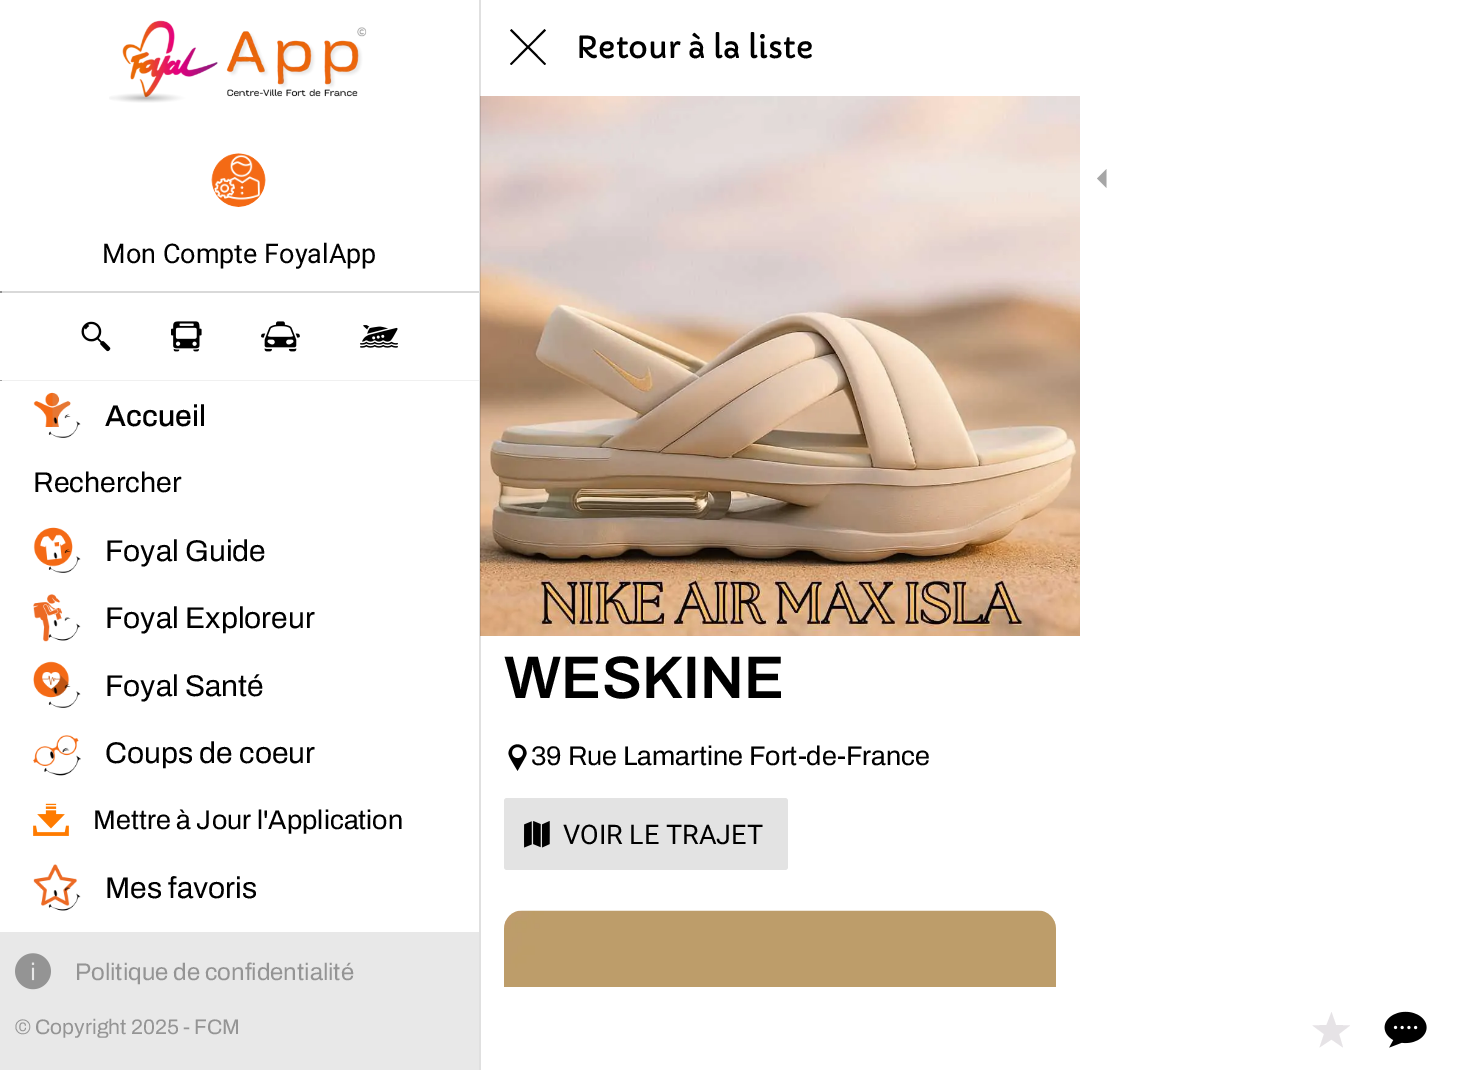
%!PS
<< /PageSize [1462 1070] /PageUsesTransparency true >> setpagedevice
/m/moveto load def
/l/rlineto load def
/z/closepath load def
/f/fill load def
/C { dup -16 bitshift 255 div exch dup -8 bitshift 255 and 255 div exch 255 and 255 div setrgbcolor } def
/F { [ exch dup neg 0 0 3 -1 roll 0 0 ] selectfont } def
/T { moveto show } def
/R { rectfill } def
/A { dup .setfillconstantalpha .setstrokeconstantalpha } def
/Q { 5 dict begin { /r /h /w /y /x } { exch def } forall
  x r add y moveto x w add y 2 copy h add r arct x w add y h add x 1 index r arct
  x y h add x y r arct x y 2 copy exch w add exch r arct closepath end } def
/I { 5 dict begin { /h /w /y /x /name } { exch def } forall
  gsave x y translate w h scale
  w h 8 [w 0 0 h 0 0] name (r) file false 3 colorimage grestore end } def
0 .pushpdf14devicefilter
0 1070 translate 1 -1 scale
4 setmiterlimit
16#FFFFFF C
0 0 1462 1070 R
(15.rgb) 480 96 600 540 I
0.12 A
16#000000 C
479 0 2 1070 R
1 A
(1.rgb) 109 20 258 83 I
(2.rgb) 211 153 55 54 I
/Roboto-Regular 27 F
(Mon Compte FoyalApp) 102 263 T
16#D9D9D9 C
0 291 479 2 R
16#919191 C
0 291 2 2 R
(3.rgb) 81 321 30 31 I
(4.rgb) 171 321 31 31 I
(5.rgb) 261 321 39 31 I
(6.rgb) 360 325 38 23 I
16#F0F0F0 C
0 380 479 1 R
16#A0A0A0 C
0 380 2 1 R
(7.rgb) 33 392 48 46 I
/Archivo-Medium 30 F
16#000000 C
(Accueil) 105 426 T
/Archivo-Regular 28.5 F
(Rechercher) 33 492 T
(8.rgb) 33 527 48 46 I
/Archivo-Regular 30 F
(Foyal Guide) 105 561 T
(9.rgb) 33 594 48 48 I
(Foyal Exploreur) 105 628 T
(10.rgb) 33 661 48 47 I
(Foyal Santé) 105 696 T
(11.rgb) 33 735 48 41 I
(Coups de coeur) 105 763 T
(12.rgb) 33 803 36 33 I
/Archivo-Regular 27 F
(Mettre à Jour l'Application) 93 829 T
(13.rgb) 33 864 48 47 I
/Archivo-Regular 30 F
(Mes favoris) 105 898 T
16#E8E8E8 C
0 932 479 138 R
(14.rgb) 15 953 36 37 I
/Archivo-Regular 24 F
16#949494 C
(Politique de confidentialité) 75 980 T
/Archivo-Regular 21 F
(© Copyright 2025 - FCM) 15 1034 T
16#000000 C
546 30.5 m -1.5 -1.5 l -16.5 17 l -16.5 -17 l -1.5 1.5 l 16.5 16.5 l -16.5 17 l 1.5 1 l 16.5 -16.5 l 16.5 16.5 l 1.5 -1 l -16.5 -17 l z f
/Capriola-Regular 30 F
(Retour à la liste) 576 58 T
16#A6A6A6 C
1106.5 169 m -9.5 9.5 l 9.5 9.5 l z f
/Archivo-SemiBold 60 F
16#000000 C
(WESKINE) 504 698 T
(16.rgb) 508 744 19 27 I
/Archivo-Regular 27 F
(39 Rue Lamartine Fort-de-France) 531 765 T
16#E3E3E3 C
504 798 284 72 3 Q f
(17.rgb) 524 821 26 27 I
/Roboto-Regular 27 F
16#000000 C
(VOIR LE TRAJET) 563 844 T
(18.rgb) 504 910 552 77 I
16#E6E3E6 C
1350 1025.5 m -14 -.5 l -4.5 -13 l -5 13 l -14 .5 l 11.5 8.5 l -4.5 13.5 l 12 -8 l 11.5 8 l -4 -13.5 l z f
(19.rgb) 1384 1011 43 37 I
.poppdf14devicefilter showpage
